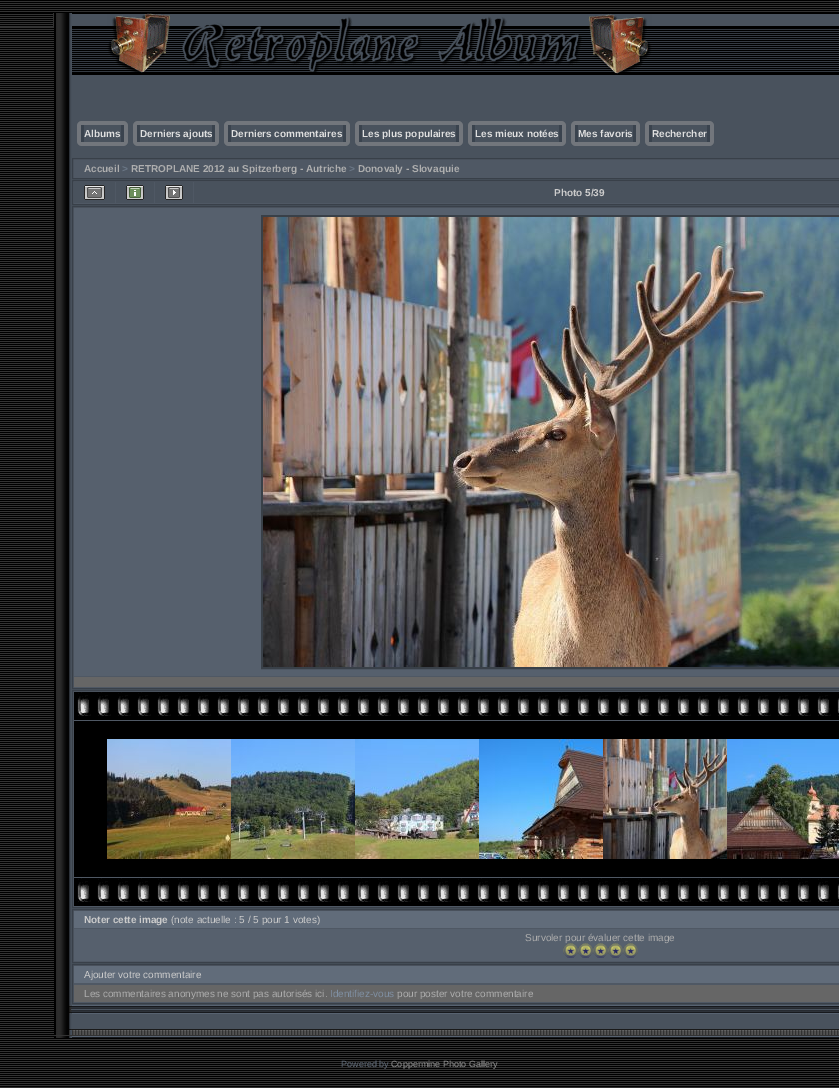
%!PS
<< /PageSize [839 1088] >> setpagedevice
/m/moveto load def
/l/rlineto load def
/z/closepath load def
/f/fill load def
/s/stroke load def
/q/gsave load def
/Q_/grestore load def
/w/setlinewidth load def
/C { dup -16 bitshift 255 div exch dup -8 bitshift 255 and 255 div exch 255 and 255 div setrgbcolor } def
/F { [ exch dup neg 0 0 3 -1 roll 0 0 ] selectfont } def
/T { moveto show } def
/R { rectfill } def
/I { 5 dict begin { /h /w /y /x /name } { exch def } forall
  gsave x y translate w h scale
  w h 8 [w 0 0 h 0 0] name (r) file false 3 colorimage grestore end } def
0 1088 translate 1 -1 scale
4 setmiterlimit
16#000000 C
0 0 839 1088 R
(1.rgb) 0 1 839 1087 I
(2.rgb) 0 13 54 14 I
(3.rgb) 54 13 18 62 I
(4.rgb) 72 13 767 61 I
(5.rgb) 107 13 545 61 I
(6.rgb) 54 75 18 930 I
16#49525D C
72 75 767 930 R
(7.rgb) 77 121 7 25 I
(8.rgb) 84 121 37 25 I
/LiberationSans-Bold 10 F
16#DFDFDF C
(Albums) 84 137 T
(9.rgb) 121 121 7 25 I
(7.rgb) 133 121 7 25 I
(10.rgb) 140 121 72 25 I
(Derniers ajouts) 140 137 T
(9.rgb) 212 121 7 25 I
(7.rgb) 224 121 7 25 I
(11.rgb) 231 121 112 25 I
(Derniers commentaires) 231 137 T
(9.rgb) 343 121 7 25 I
(7.rgb) 355 121 7 25 I
(12.rgb) 362 121 94 25 I
(Les plus populaires) 362 137 T
(9.rgb) 456 121 7 25 I
(7.rgb) 468 121 7 25 I
(13.rgb) 475 121 84 25 I
(Les mieux notées) 475 137 T
(9.rgb) 559 121 7 25 I
(7.rgb) 571 121 7 25 I
(14.rgb) 578 121 55 25 I
(Mes favoris) 578 137 T
(9.rgb) 633 121 7 25 I
(7.rgb) 645 121 7 25 I
(14.rgb) 652 121 55 25 I
(Rechercher) 652 137 T
(9.rgb) 707 121 7 25 I
16#4F5864 C
72.5 158.5 m 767 0 l 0 20 l -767 0 l z q f Q_
16#394049 C
s
16#AEAEAE C
(Accueil) 84 172 T
16#6A7786 C
(>) 122 172 T
16#AEAEAE C
(RETROPLANE 2012 au Spitzerberg - Autriche) 131 172 T
16#6A7786 C
(>) 349 172 T
16#AEAEAE C
(Donovaly - Slovaquie) 358 172 T
16#4F5864 C
72.5 180.5 m 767 0 l 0 24 l -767 0 l z q f Q_
16#394049 C
s
16#49525D C
74 182 41 21 R
(15.rgb) 84 185 21 15 I
116 182 38 21 R
(16.rgb) 126 185 18 15 I
155 182 38 21 R
(17.rgb) 165 185 18 15 I
194 182 645 21 R
16#CCCCCC C
(Photo 5/39) 554 196 T
16#4F5864 C
72.5 206.5 m 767 0 l 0 482 l -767 0 l z q f Q_
16#394049 C
s
16#56606D C
74 208 765 468 R
16#394048 C
2 w
262 216 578 452 rectstroke
(18.rgb) 263 217 576 450 I
16#666666 C
74 677 765 10 R
16#4F5864 C
72.5 690.5 m 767 0 l 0 217 l -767 0 l z q f Q_
16#394049 C
1 w
s
16#000000 C
74 692 765 28 R
(19.rgb) 77 692 762 24 I
74 721 765 156 R
(20.rgb) 107 739 124 120 I
(21.rgb) 231 739 124 120 I
(22.rgb) 355 739 124 120 I
(23.rgb) 479 739 124 120 I
(24.rgb) 603 739 124 120 I
(25.rgb) 727 739 112 120 I
74 878 765 28 R
(19.rgb) 77 878 762 24 I
16#4F5864 C
72.5 909.5 m 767 0 l 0 53 l -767 0 l z q f Q_
16#394049 C
s
16#616C7A C
74 911 765 17 R
16#CCCCCC C
(Noter cette image) 84 923 T
/LiberationSans-Regular 10 F
(\(note actuelle : 5 / 5 pour 1 votes\)) 171 923 T
16#56606D C
74 929 765 32 R
16#AEAEAE C
(Survoler pour évaluer cette image) 525 941 T
(26.rgb) 563 943 15 15 I
(27.rgb) 578 943 15 15 I
(27.rgb) 593 943 15 15 I
(27.rgb) 608 943 15 15 I
(27.rgb) 623 943 15 15 I
16#4F5864 C
72.5 964.5 m 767 0 l 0 39 l -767 0 l z q f Q_
16#394049 C
s
16#616C7A C
74 966 765 17 R
16#CCCCCC C
(Ajouter votre commentaire) 84 978 T
16#666666 C
74 985 765 17 R
16#AEAEAE C
(Les commentaires anonymes ne sont pas autorisés ici.) 84 997 T
16#8090A3 C
(Identifiez-vous) 330 997 T
16#AEAEAE C
(pour poster votre commentaire) 397 997 T
(28.rgb) 54 1036 18 2 I
(29.rgb) 54 1005 18 31 I
(30.rgb) 72 1005 767 33 I
/LiberationSans-Regular 9 F
16#616C7A C
(Powered by) 341 1067 T
16#949494 C
(Coppermine Photo Gallery) 391 1067 T
showpage
